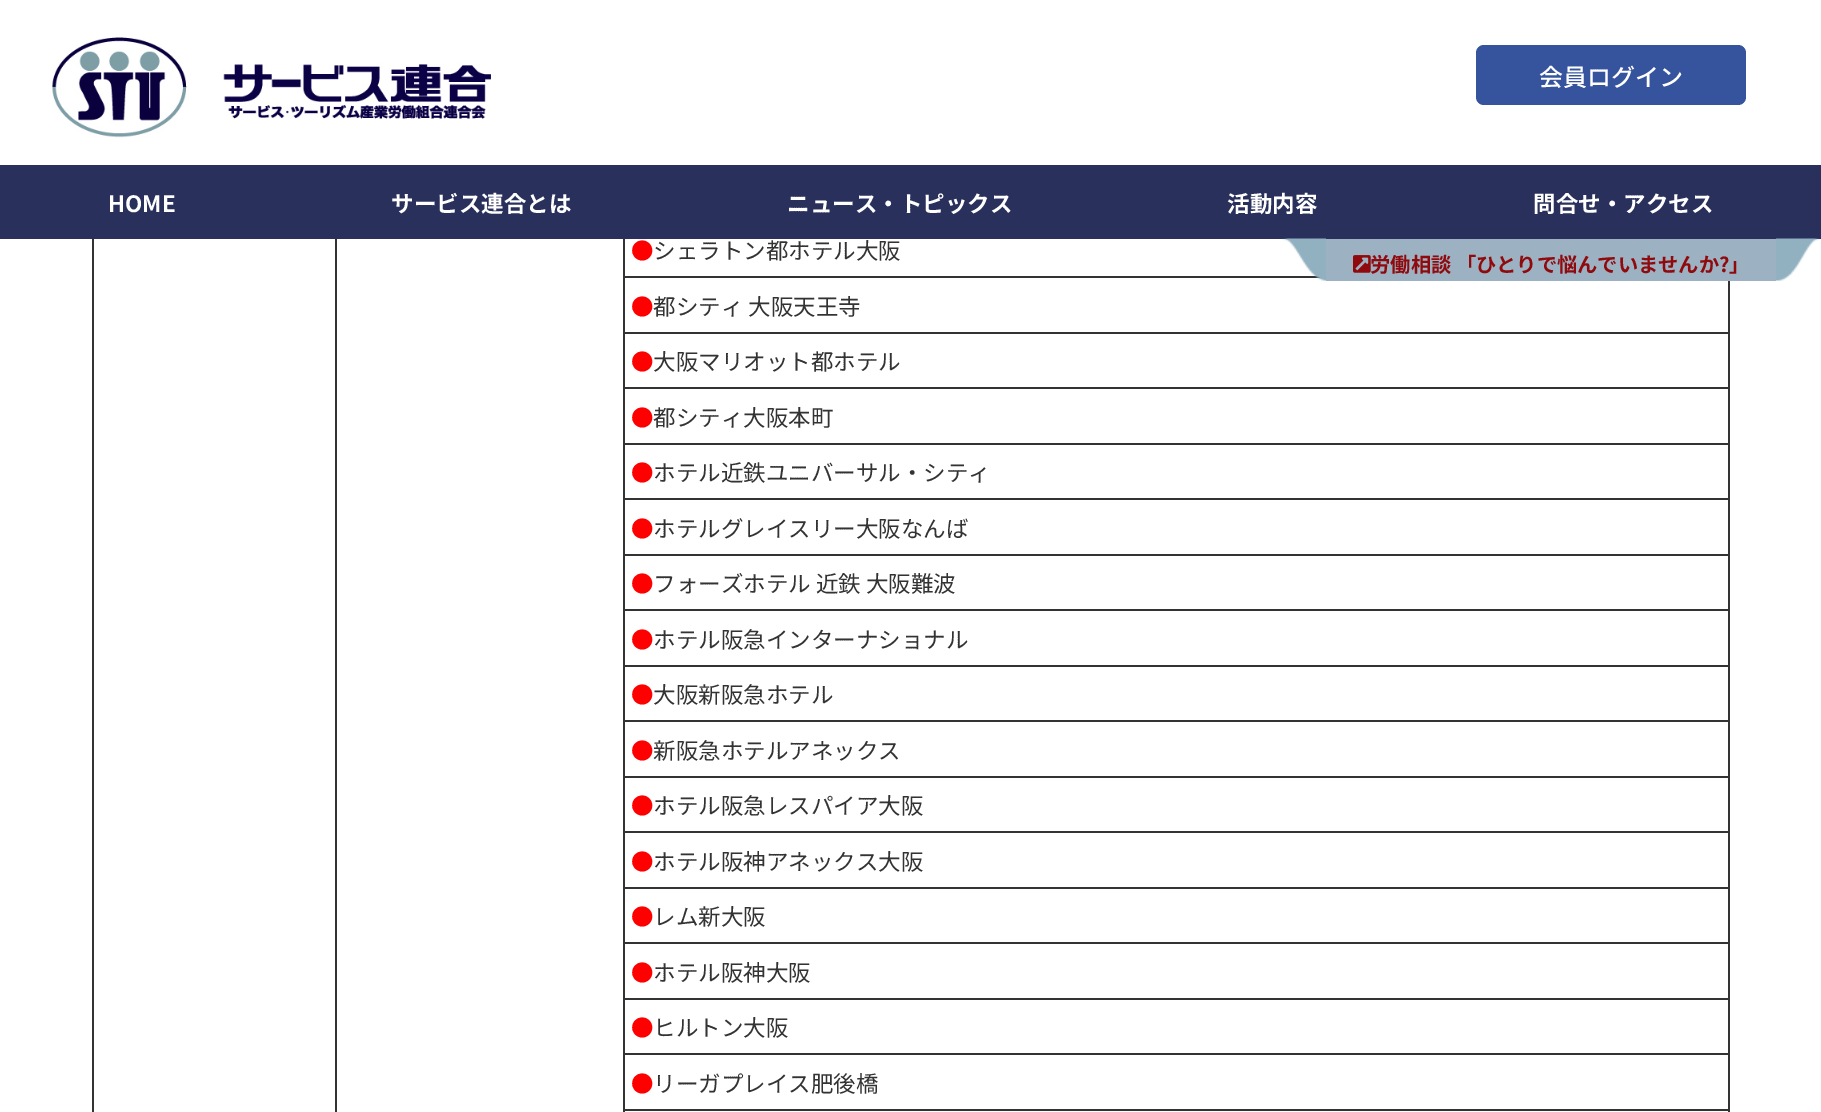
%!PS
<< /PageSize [1821 1112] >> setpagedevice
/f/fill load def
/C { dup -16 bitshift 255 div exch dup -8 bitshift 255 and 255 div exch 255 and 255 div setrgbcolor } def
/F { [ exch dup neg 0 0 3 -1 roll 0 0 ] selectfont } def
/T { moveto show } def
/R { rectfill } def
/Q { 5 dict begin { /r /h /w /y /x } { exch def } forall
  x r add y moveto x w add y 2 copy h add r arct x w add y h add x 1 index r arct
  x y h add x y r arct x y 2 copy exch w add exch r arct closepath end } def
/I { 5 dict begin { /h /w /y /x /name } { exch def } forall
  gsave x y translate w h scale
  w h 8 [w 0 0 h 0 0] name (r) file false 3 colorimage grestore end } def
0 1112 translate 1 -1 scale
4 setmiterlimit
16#FFFFFF C
0 0 1821 1112 R
(1.rgb) 52 37 439 101 I
16#36549D C
1476 45 270 60 8 Q f
/NotoSansJP-Medium 24 F
16#FFFFFF C
(会員ログイン) 1539 86 T
16#28305B C
0 165 1821 74 R
/NotoSansJP-Bold 22.5 F
16#FFFFFF C
(HOME) 108 212 T
(サービス連合とは) 391 212 T
(ニュース・トピックス) 787 212 T
(活動内容) 1227 212 T
(問合せ・アクセス) 1533 212 T
16#9CB2C3 C
1326 239 450 42 R
16#333333 C
623 276 698 2 R
(2.rgb) 1282 238 44 43 I
(3.rgb) 1353 255 18 18 I
/NotoSansJP-Bold 20.25 F
16#900A0D C
(労働相談 「ひとりで悩んでいませんか?」) 1370 272 T
(4.rgb) 1776 238 44 43 I
16#333333 C
1728 281 2 831 R
92 239 2 873 R
335 239 2 873 R
/NotoSansJP-Regular 22.5 F
16#FF0000 C
(●) 631 259 T
16#333333 C
(シェラトン都ホテル大阪) 653 259 T
623 332 1107 2 R
623 387 1107 2 R
623 443 1107 2 R
623 498 1107 2 R
623 554 1107 2 R
623 609 1107 2 R
623 665 1107 2 R
623 720 1107 2 R
623 776 1107 2 R
623 831 1107 2 R
623 887 1107 2 R
623 942 1107 2 R
623 998 1107 2 R
623 1053 1107 2 R
623 1109 1107 2 R
623 1109 2 3 R
623 1053 2 57 R
623 998 2 57 R
623 942 2 57 R
623 887 2 57 R
623 831 2 57 R
623 776 2 57 R
623 720 2 57 R
623 665 2 57 R
623 609 2 57 R
623 554 2 57 R
623 498 2 57 R
623 443 2 57 R
623 387 2 57 R
623 332 2 57 R
623 239 2 94 R
16#FF0000 C
(●) 631 315 T
16#333333 C
(都シティ 大阪天王寺) 653 315 T
16#FF0000 C
(●) 631 370 T
16#333333 C
(大阪マリオット都ホテル) 653 370 T
16#FF0000 C
(●) 631 426 T
16#333333 C
(都シティ大阪本町) 653 426 T
16#FF0000 C
(●) 631 481 T
16#333333 C
(ホテル近鉄ユニバーサル・シティ) 653 481 T
16#FF0000 C
(●) 631 537 T
16#333333 C
(ホテルグレイスリー大阪なんば) 653 537 T
16#FF0000 C
(●) 631 592 T
16#333333 C
(フォーズホテル 近鉄 大阪難波) 653 592 T
16#FF0000 C
(●) 631 648 T
16#333333 C
(ホテル阪急インターナショナル) 653 648 T
16#FF0000 C
(●) 631 703 T
16#333333 C
(大阪新阪急ホテル) 653 703 T
16#FF0000 C
(●) 631 759 T
16#333333 C
(新阪急ホテルアネックス) 653 759 T
16#FF0000 C
(●) 631 814 T
16#333333 C
(ホテル阪急レスパイア大阪) 653 814 T
16#FF0000 C
(●) 631 870 T
16#333333 C
(ホテル阪神アネックス大阪) 653 870 T
16#FF0000 C
(●) 631 925 T
16#333333 C
(レム新大阪) 653 925 T
16#FF0000 C
(●) 631 981 T
16#333333 C
(ホテル阪神大阪) 653 981 T
16#FF0000 C
(●) 631 1036 T
16#333333 C
(ヒルトン大阪) 653 1036 T
16#FF0000 C
(●) 631 1092 T
16#333333 C
(リーガプレイス肥後橋) 653 1092 T
showpage
